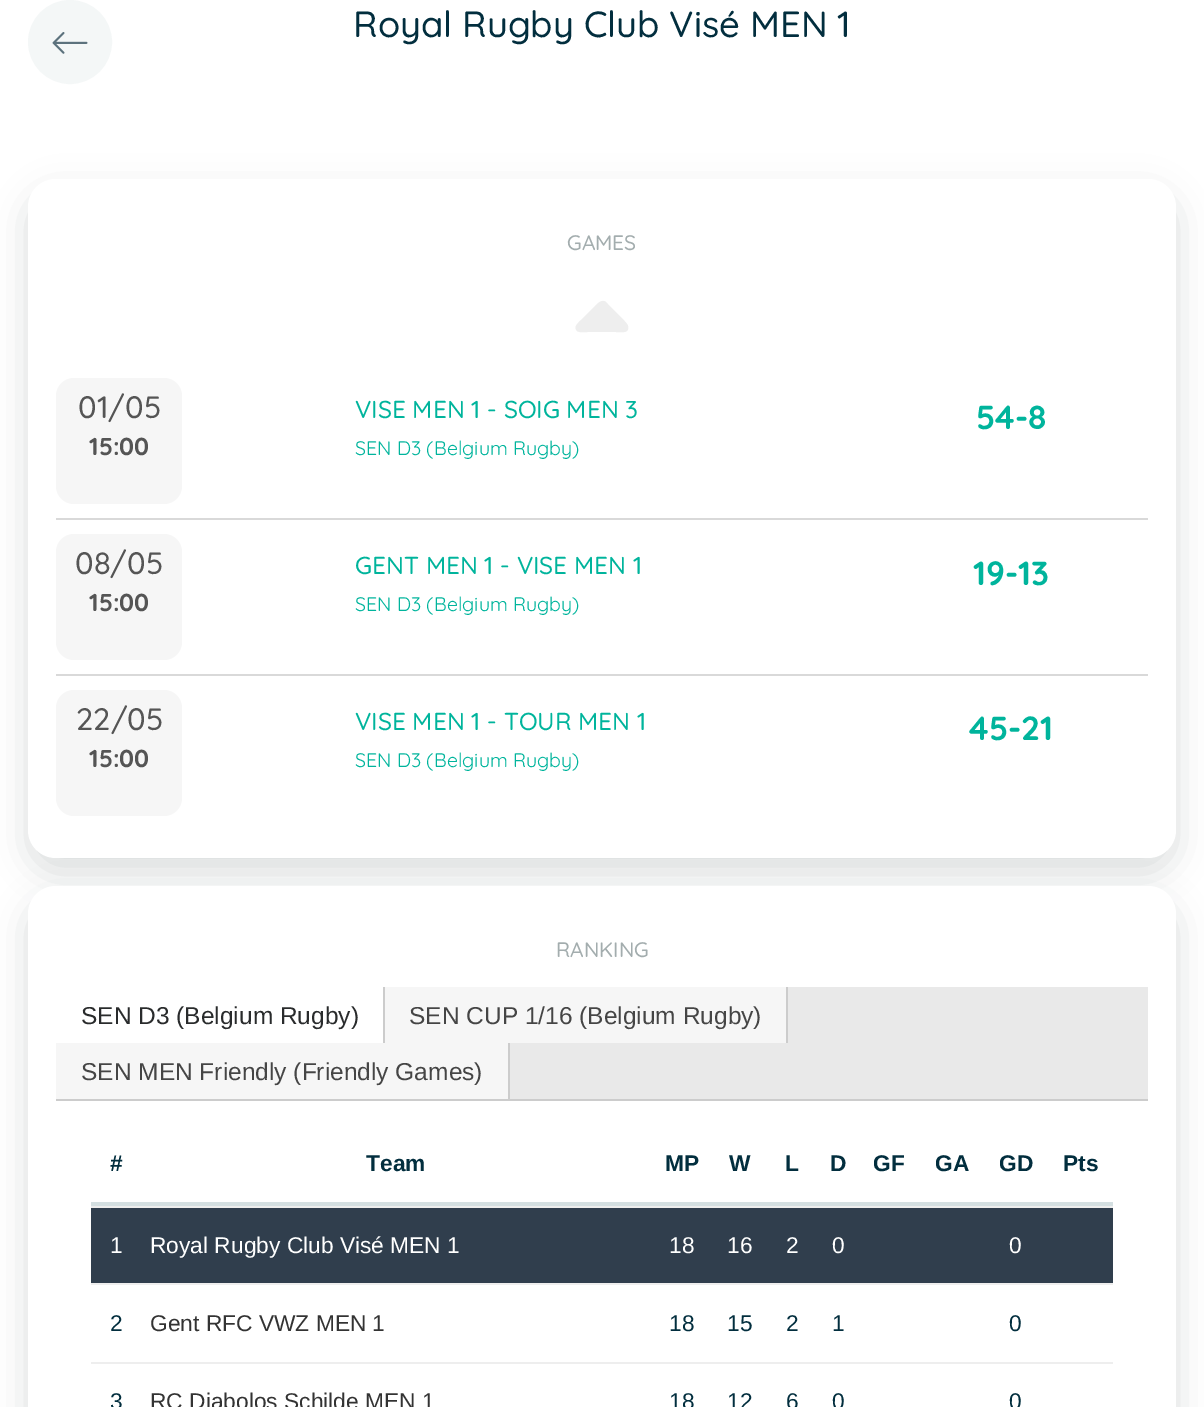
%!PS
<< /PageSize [1204 1407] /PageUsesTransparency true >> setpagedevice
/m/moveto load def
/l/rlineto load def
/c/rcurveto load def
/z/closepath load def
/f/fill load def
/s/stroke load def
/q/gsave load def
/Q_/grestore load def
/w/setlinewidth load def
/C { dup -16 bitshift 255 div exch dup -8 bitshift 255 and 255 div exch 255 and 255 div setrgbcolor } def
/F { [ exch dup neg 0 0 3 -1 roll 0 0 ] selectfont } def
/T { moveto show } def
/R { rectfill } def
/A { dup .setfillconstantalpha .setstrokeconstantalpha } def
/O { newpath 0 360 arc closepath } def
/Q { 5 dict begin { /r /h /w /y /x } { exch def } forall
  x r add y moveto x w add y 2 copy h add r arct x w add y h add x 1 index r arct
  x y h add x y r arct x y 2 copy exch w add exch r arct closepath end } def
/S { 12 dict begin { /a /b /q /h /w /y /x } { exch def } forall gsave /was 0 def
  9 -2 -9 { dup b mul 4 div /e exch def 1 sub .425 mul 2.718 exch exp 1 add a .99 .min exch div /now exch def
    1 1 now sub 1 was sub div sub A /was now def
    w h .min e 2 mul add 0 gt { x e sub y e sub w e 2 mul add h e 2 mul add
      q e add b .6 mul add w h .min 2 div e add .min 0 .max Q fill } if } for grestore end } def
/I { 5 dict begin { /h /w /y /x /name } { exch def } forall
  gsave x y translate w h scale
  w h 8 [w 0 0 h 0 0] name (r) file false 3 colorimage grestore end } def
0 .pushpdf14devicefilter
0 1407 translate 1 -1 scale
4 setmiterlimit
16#FFFFFF C
0 0 1204 1407 R
16#F4F7F7 C
70 42 41 O q f Q_
2 w
s
(1.rgb) 52 32 36 22 I
/Quicksand-Medium 36.4 F
16#022E3E C
(Royal Rugby Club Visé MEN 1) 353 37 T
16#475C5D C
28 193 1148 679 28 17.5 .2 S
16#FFFFFF C
28 179 1148 679 28 Q f
/Quicksand-Medium 21 F
16#A3ADAE C
(GAMES) 567 250 T
16#EEEEEE C
606 302 m -4 -3 -8 1 -11 4 c -14 14 l -3 3 -8 7 -4 11 c 3 2 8 1 11 1 c 28 0 l 4 0 14 2 12 -6 c 0 -3 -19 -20 -22 -24 c z f
16#D9D9D9 C
56 518 1092 2 R
16#F6F6F6 C
56 378 126 126 18 Q f
/Quicksand-Medium 31 F
16#555555 C
(01/05) 78 418 T
/Quicksand-Bold 24.5 F
(15:00) 89 455 T
/Quicksand-Medium 24.5 F
16#00B49C C
(VISE MEN 1 - SOIG MEN 3) 355 418 T
/Quicksand-Regular 19.6 F
(SEN D3 \(Belgium Rugby\)) 355 455 T
/Quicksand-Bold 33.5 F
(54-8) 976 429 T
16#D9D9D9 C
56 674 1092 2 R
16#F6F6F6 C
56 534 126 126 18 Q f
/Quicksand-Medium 31 F
16#555555 C
(08/05) 75 574 T
/Quicksand-Bold 24.5 F
(15:00) 89 611 T
/Quicksand-Medium 24.5 F
16#00B49C C
(GENT MEN 1 - VISE MEN 1) 355 574 T
/Quicksand-Regular 19.6 F
(SEN D3 \(Belgium Rugby\)) 355 611 T
/Quicksand-Bold 33.5 F
(19-13) 973 585 T
16#F6F6F6 C
56 690 126 126 18 Q f
/Quicksand-Medium 31 F
16#555555 C
(22/05) 76 730 T
/Quicksand-Bold 24.5 F
(15:00) 89 767 T
/Quicksand-Medium 24.5 F
16#00B49C C
(VISE MEN 1 - TOUR MEN 1) 355 730 T
/Quicksand-Regular 19.6 F
(SEN D3 \(Belgium Rugby\)) 355 767 T
/Quicksand-Bold 33.5 F
(45-21) 969 740 T
16#475C5D C
28 900 1148 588 28 17.5 .2 S
16#FFFFFF C
56 886 m 1092 0 l 15.5 0 28 12.5 28 28 c 0 493 l -1148 0 l 0 -493 l 0 -15.5 12.5 -28 28 -28 c z f
/Quicksand-Medium 21 F
16#A3ADAE C
(RANKING) 556 957 T
16#E9E9E9 C
510 987 638 112 R
16#CCCCCC C
56 1099 1092 2 R
383 987 2 58 R
/LiberationSans-Regular 24.5 F
16#292B2C C
(SEN D3 \(Belgium Rugby\)) 81 1024 T
16#F6F6F6 C
385 987 401 56 R
16#CCCCCC C
786 987 2 56 R
16#454545 C
(SEN CUP 1/16 \(Belgium Rugby\)) 409 1024 T
16#F6F6F6 C
56 1043 452 56 R
16#CCCCCC C
508 1043 2 56 R
16#454545 C
(SEN MEN Friendly \(Friendly Games\)) 81 1080 T
16#D4DFE1 C
91 1202 1022 4 R
/LiberationSans-Bold 22.75 F
16#022E3E C
(#) 110 1171 T
(Team) 366 1171 T
(MP) 665 1171 T
(W) 729 1171 T
(L) 785 1171 T
(D) 830 1171 T
(GF) 873 1171 T
(GA) 935 1171 T
(GD) 999 1171 T
(Pts) 1063 1171 T
16#303E4D C
91 1208 1022 75 R
16#EEEEEE C
91 1206 1022 2 R
/LiberationSans-Regular 22.75 F
16#FFFFFF C
(1) 110 1253 T
(Royal Rugby Club Visé MEN 1) 150 1253 T
(18) 669 1253 T
(16) 727 1253 T
(2) 786 1253 T
(0) 832 1253 T
(0) 1009 1253 T
16#EEEEEE C
91 1283 1022 2 R
16#022E3E C
(2) 110 1331 T
16#333333 C
(Gent RFC VWZ MEN 1) 150 1331 T
16#022E3E C
(18) 669 1331 T
(15) 727 1331 T
(2) 786 1331 T
(1) 832 1331 T
(0) 1009 1331 T
16#EEEEEE C
91 1362 1022 2 R
16#022E3E C
(3) 110 1409 T
16#333333 C
(RC Diabolos Schilde MEN 1) 150 1409 T
16#022E3E C
(18) 669 1409 T
(12) 727 1409 T
(6) 786 1409 T
(0) 832 1409 T
(0) 1009 1409 T
.poppdf14devicefilter showpage
